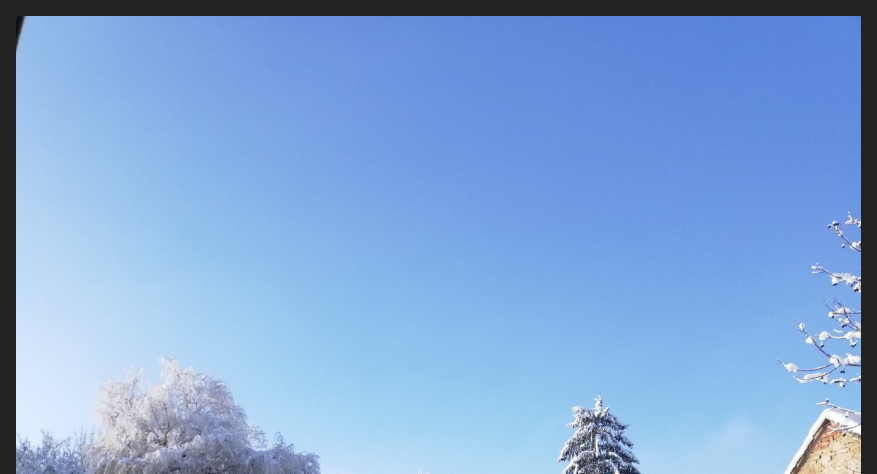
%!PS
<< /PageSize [877 474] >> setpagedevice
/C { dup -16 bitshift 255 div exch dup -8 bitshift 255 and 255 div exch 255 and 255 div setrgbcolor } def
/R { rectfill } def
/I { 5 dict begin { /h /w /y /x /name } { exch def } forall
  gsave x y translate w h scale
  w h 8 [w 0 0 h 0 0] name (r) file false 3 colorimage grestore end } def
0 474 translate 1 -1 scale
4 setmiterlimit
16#222222 C
0 0 877 474 R
(1.rgb) 16 16 845 458 I
showpage
